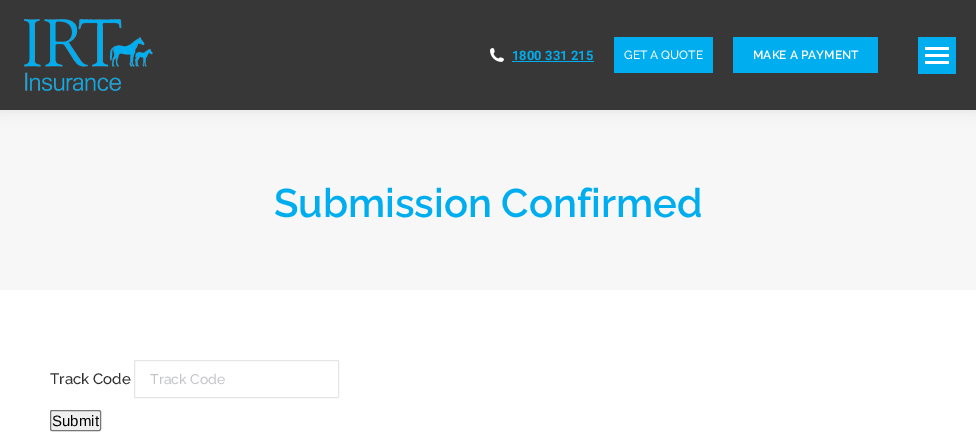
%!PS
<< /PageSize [976 437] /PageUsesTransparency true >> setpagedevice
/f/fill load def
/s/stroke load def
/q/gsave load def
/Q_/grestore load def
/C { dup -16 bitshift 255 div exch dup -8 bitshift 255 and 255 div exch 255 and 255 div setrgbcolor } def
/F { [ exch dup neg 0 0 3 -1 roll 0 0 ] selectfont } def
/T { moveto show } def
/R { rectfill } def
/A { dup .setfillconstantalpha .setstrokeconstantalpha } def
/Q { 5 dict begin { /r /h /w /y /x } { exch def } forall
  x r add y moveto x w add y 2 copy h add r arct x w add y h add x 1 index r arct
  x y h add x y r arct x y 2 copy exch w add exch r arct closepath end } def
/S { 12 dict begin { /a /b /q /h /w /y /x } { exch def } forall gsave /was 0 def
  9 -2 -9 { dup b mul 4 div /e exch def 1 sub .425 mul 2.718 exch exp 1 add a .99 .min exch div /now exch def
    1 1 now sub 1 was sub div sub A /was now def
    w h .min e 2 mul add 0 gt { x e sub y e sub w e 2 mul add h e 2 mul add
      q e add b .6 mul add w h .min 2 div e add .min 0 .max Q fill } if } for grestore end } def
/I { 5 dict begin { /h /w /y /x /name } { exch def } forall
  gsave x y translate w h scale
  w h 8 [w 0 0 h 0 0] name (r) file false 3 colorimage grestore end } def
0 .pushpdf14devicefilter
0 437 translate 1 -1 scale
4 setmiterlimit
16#FFFFFF C
0 0 976 437 R
16#F7F7F7 C
0 110 976 180 R
16#000000 C
-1 -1 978 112 0 7.5 .07 S
16#373737 C
0 0 976 110 R
(1.rgb) 24 19 129 72 I
(2.rgb) 490 48 14 14 I
/Roboto-Bold 13 F
16#00ADEE C
(1800 331 215) 512 60 T
16#00AEEF C
512 61 82 1 R
614 37 99 36 R
/Raleway-Medium 12 F
16#FFFFFF C
(GET A QUOTE) 624 59 T
16#00AEEF C
733 37 145 36 R
/Raleway-SemiBold 12 F
16#FFFFFF C
(MAKE A PAYMENT) 753 59 T
16#00ADEE C
918 37 38 37 R
16#FFFFFF C
925 47 24 3 R
925 54 24 3 R
925 61 24 3 R
/Raleway-SemiBold 40 F
16#00ADEE C
(Submission Confirmed) 274 217 T
/Raleway-Medium 15 F
16#303030 C
(Track Code) 50 384 T
16#E5E5E5 C
134.5 360.5 204 37 .5 Q s
/Raleway-Medium 14 F
16#C4C5C9 C
(Track Code) 150 384 T
16#EFEFEF C
50.5 410.5 50 20 1.5 Q q f Q_
16#767676 C
s
/LiberationSans-Regular 15 F
16#000000 C
(Submit) 52 426 T
.poppdf14devicefilter showpage
